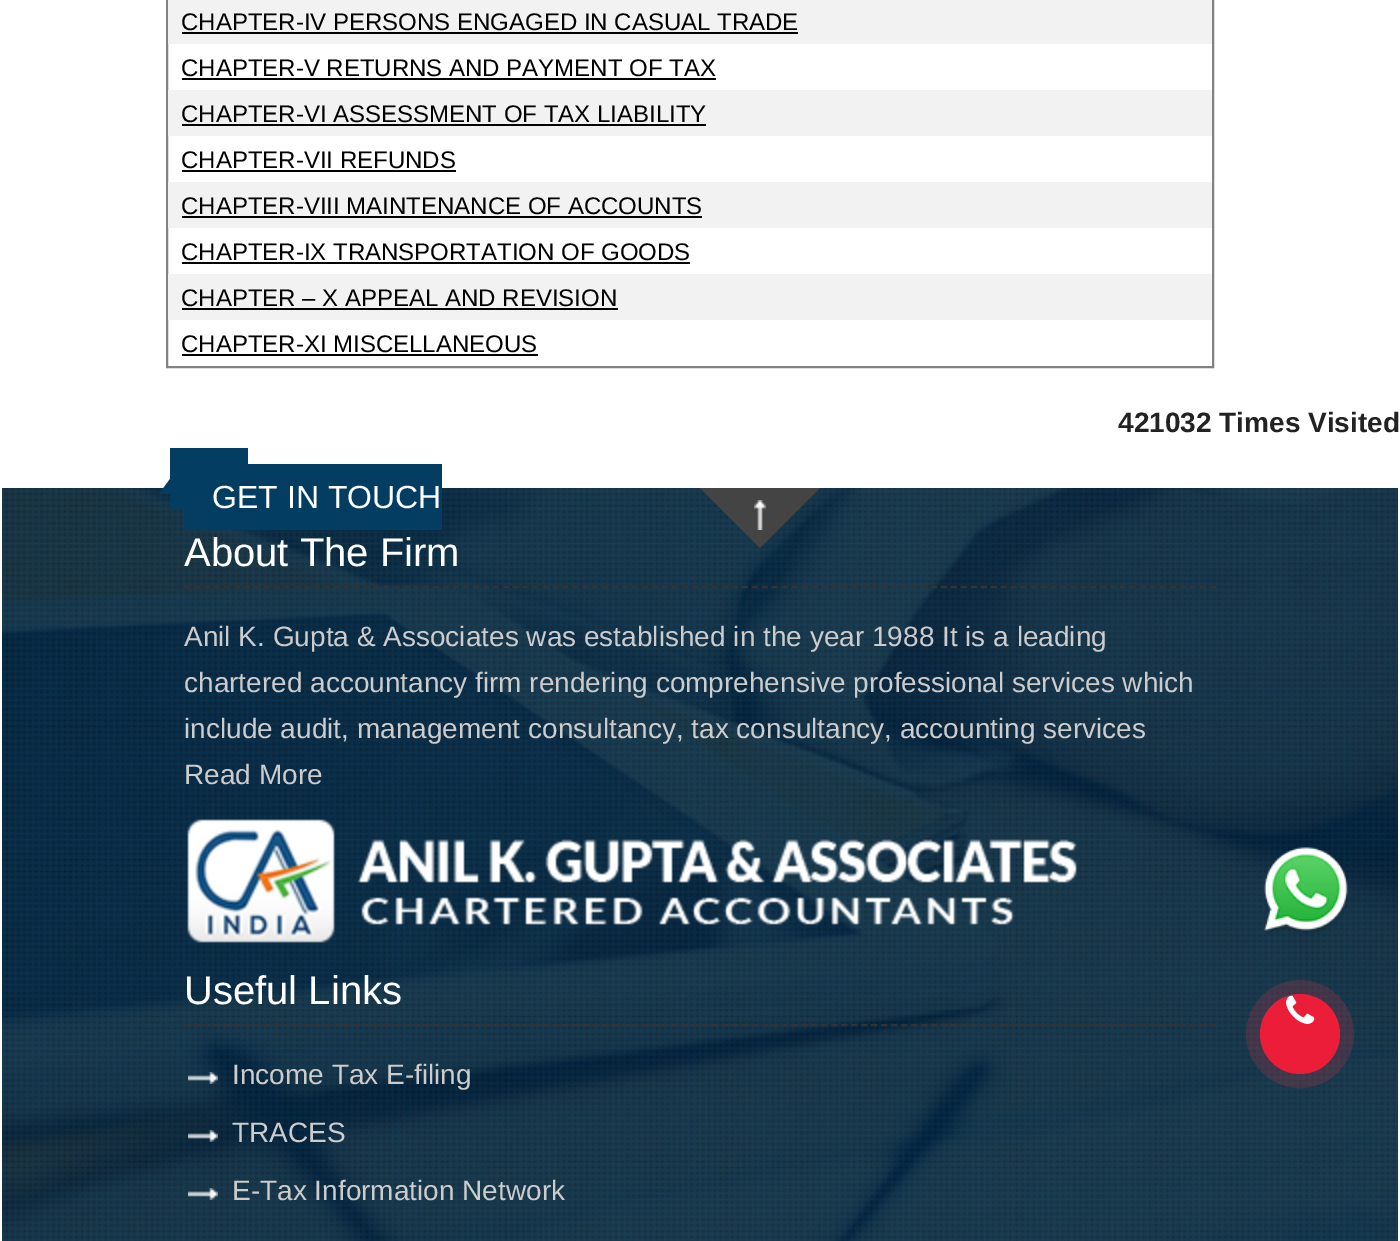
%!PS
<< /PageSize [1400 1241] /PageUsesTransparency true >> setpagedevice
/m/moveto load def
/l/rlineto load def
/z/closepath load def
/f/fill load def
/s/stroke load def
/w/setlinewidth load def
/C { dup -16 bitshift 255 div exch dup -8 bitshift 255 and 255 div exch 255 and 255 div setrgbcolor } def
/F { [ exch dup neg 0 0 3 -1 roll 0 0 ] selectfont } def
/T { moveto show } def
/R { rectfill } def
/A { dup .setfillconstantalpha .setstrokeconstantalpha } def
/O { newpath 0 360 arc closepath } def
/I { 5 dict begin { /h /w /y /x /name } { exch def } forall
  gsave x y translate w h scale
  w h 8 [w 0 0 h 0 0] name (r) file false 3 colorimage grestore end } def
0 .pushpdf14devicefilter
0 1241 translate 1 -1 scale
4 setmiterlimit
16#FFFFFF C
0 0 1400 1241 R
16#828282 C
2 w
167 -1 1046 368 rectstroke
16#F2F2F2 C
168 0 1044 44 R
/LiberationSans-Regular 24 F
16#000000 C
(CHAPTER-IV PERSONS ENGAGED IN CASUAL TRADE) 181 30 T
182 32 616 2 R
(CHAPTER-V RETURNS AND PAYMENT OF TAX) 181 76 T
182 78 534 2 R
16#F2F2F2 C
168 90 1044 46 R
16#000000 C
(CHAPTER-VI ASSESSMENT OF TAX LIABILITY) 181 122 T
182 124 524 2 R
(CHAPTER-VII REFUNDS) 181 168 T
182 170 274 2 R
16#F2F2F2 C
168 182 1044 46 R
16#000000 C
(CHAPTER-VIII MAINTENANCE OF ACCOUNTS) 181 214 T
182 216 520 2 R
(CHAPTER-IX TRANSPORTATION OF GOODS) 181 260 T
182 262 508 2 R
16#F2F2F2 C
168 274 1044 46 R
16#000000 C
(CHAPTER – X APPEAL AND REVISION) 181 306 T
182 308 436 2 R
(CHAPTER-XI MISCELLANEOUS) 181 352 T
182 354 356 2 R
/LiberationSans-Bold 28 F
16#222222 C
(421032 Times Visited) 1118 432 T
(1.rgb) 2 488 1396 753 I
16#033D62 C
184 464 258 66 R
170 448 78 62 R
/LiberationSans-Regular 32 F
16#FFFFFF C
(GET IN TOUCH) 212 508 T
16#033D62 C
181 464 m 50 0 l -22 30 l -50 0 l z f
16#444444 C
700 488 m 120 0 l -60 60 l z f
(2.rgb) 754 500 12 30 I
16#333333 C
[6 3.96] 0 setdash
184 587 m 1032 0 l s
/LiberationSans-Regular 40 F
16#FFFFFF C
(About The Firm) 184 566 T
/LiberationSans-Regular 28 F
16#CCCCCC C
(Anil K. Gupta & Associates was established in the year 1988 It is a leading) 184 646 T
(chartered accountancy firm rendering comprehensive professional services which) 184 692 T
(include audit, management consultancy, tax consultancy, accounting services) 184 738 T
(Read More) 184 784 T
(3.rgb) 187 819 890 124 I
16#333333 C
184 1025 m 1032 0 l s
/LiberationSans-Regular 40 F
16#FFFFFF C
(Useful Links) 184 1004 T
(4.rgb) 188 1072 30 12 I
/LiberationSans-Regular 28 F
16#CCCCCC C
(Income Tax E-filing) 232 1084 T
(5.rgb) 188 1130 30 12 I
(TRACES) 232 1142 T
(6.rgb) 188 1188 30 12 I
(E-Tax Information Network) 232 1200 T
(7.rgb) 1264 847 84 87 I
0.21 A
16#DC3545 C
14 w
[] 0 setdash
1300 1034 47 O s
1 A
16#EB1D39 C
1300 1034 40 O f
(8.rgb) 1286 995 29 29 I
.poppdf14devicefilter showpage
